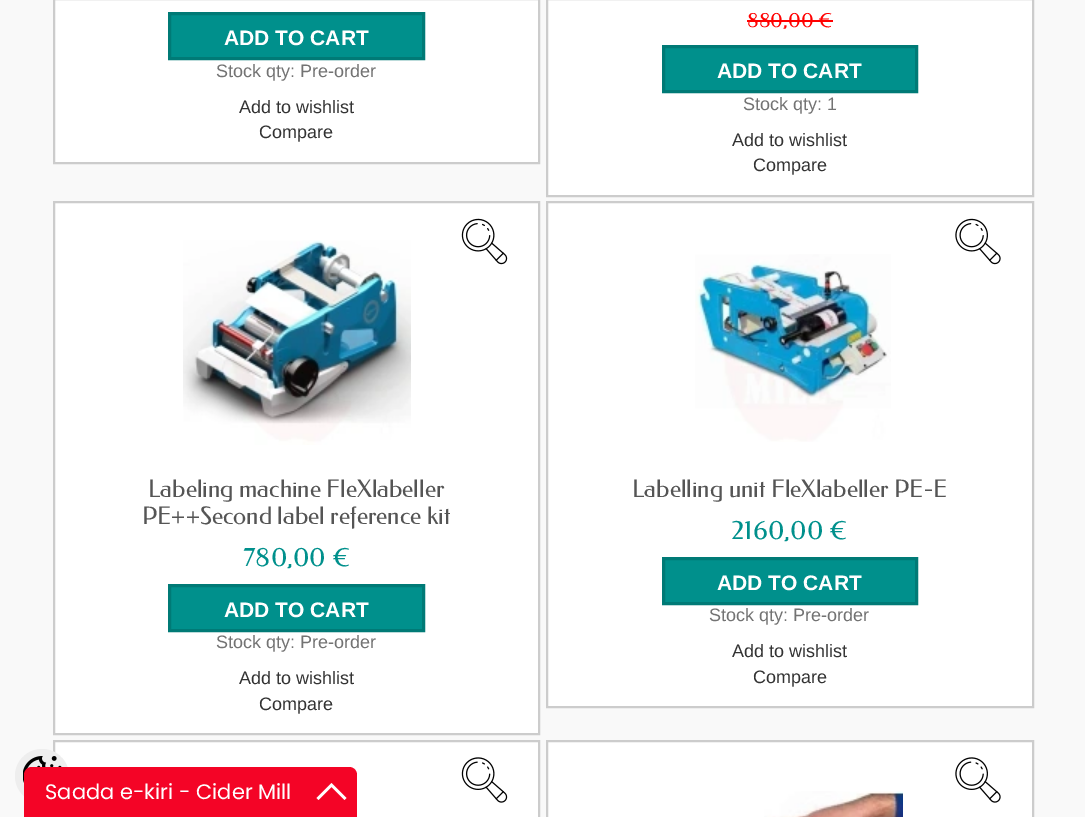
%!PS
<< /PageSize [1085 817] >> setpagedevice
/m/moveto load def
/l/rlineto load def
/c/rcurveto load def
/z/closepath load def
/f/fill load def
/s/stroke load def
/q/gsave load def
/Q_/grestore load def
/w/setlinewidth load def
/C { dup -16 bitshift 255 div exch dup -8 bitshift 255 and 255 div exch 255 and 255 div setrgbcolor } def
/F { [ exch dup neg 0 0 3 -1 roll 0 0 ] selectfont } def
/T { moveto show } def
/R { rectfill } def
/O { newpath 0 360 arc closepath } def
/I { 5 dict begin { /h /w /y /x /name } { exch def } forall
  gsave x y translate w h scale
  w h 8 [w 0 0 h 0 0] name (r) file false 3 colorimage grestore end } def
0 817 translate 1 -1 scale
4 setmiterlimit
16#F9F9F9 C
0 0 1085 817 R
16#FFFFFF C
54 -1 m 485 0 l 0 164 l -485 0 l z q f Q_
16#CCCCCC C
2 w
s
16#00908C C
169.5 13.5 m 254 0 l 0 45 l -254 0 l z q f Q_
16#007A76 C
3 w
s
/LiberationSans-Bold 21 F
16#FFFFFF C
(ADD TO CART) 224 45 T
/LiberationSans-Regular 18 F
16#737373 C
(Stock qty: Pre-order) 216 77 T
16#333333 C
(Add to wishlist) 239 113 T
(Compare) 259 138 T
16#FFFFFF C
547 -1 m 486 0 l 0 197 l -486 0 l z q f Q_
16#CCCCCC C
2 w
s
/Federo-Regular 21 F
16#FF0000 C
(880,00 €) 747 27 T
747 20 86 2 R
16#00908C C
663.5 46.5 m 253 0 l 0 45 l -253 0 l z q f Q_
16#007A76 C
3 w
s
/LiberationSans-Bold 21 F
16#FFFFFF C
(ADD TO CART) 717 78 T
/LiberationSans-Regular 18 F
16#737373 C
(Stock qty: 1) 743 110 T
16#333333 C
(Add to wishlist) 732 146 T
(Compare) 753 171 T
16#FFFFFF C
54 202 m 485 0 l 0 532 l -485 0 l z q f Q_
16#CCCCCC C
2 w
s
(1.rgb) 183 240 228 205 I
(2.rgb) 461 218 47 47 I
/Federo-Regular 24 F
16#555555 C
(Labeling machine FleXlabeller) 148 497 T
(PE++Second label reference kit) 142 524 T
/Federo-Regular 27 F
16#00908C C
(780,00 €) 243 566 T
169.5 585.5 m 254 0 l 0 45 l -254 0 l z q f Q_
16#007A76 C
3 w
s
/LiberationSans-Bold 21 F
16#FFFFFF C
(ADD TO CART) 224 617 T
/LiberationSans-Regular 18 F
16#737373 C
(Stock qty: Pre-order) 216 648 T
16#333333 C
(Add to wishlist) 239 684 T
(Compare) 259 710 T
16#FFFFFF C
547 202 m 486 0 l 0 505 l -486 0 l z q f Q_
16#CCCCCC C
2 w
s
(3.rgb) 955 218 46 47 I
(4.rgb) 695 254 196 188 I
/Federo-Regular 24 F
16#555555 C
(Labelling unit FleXlabeller PE-E) 632 497 T
/Federo-Regular 27 F
16#00908C C
(2160,00 €) 731 539 T
663.5 558.5 m 253 0 l 0 45 l -253 0 l z q f Q_
16#007A76 C
3 w
s
/LiberationSans-Bold 21 F
16#FFFFFF C
(ADD TO CART) 717 590 T
/LiberationSans-Regular 18 F
16#737373 C
(Stock qty: Pre-order) 709 621 T
16#333333 C
(Add to wishlist) 732 657 T
(Compare) 753 683 T
16#FFFFFF C
54 741 m 485 0 l 0 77 l -485 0 l z q f Q_
16#CCCCCC C
2 w
s
(5.rgb) 461 757 47 46 I
16#FFFFFF C
547 741 m 486 0 l 0 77 l -486 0 l z q f Q_
16#CCCCCC C
s
(6.rgb) 764 791 139 26 I
(7.rgb) 955 757 46 46 I
16#EEEEEE C
42 776 27 O f
(8.rgb) 23 756 39 27 I
16#F40426 C
32 767 m 317 0 l 4.5 0 8 3.5 8 8 c 0 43 l -333 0 l 0 -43 l 0 -4.5 3.5 -8 8 -8 c z f
/Poppins-Regular 21 F
16#FFFFFF C
(Saada e-kiri - Cider Mill) 45 799 T
331.5 783 m 15 15 l -2 2 l -13 -13 l -13 13 l -2 -2 l z f
showpage
